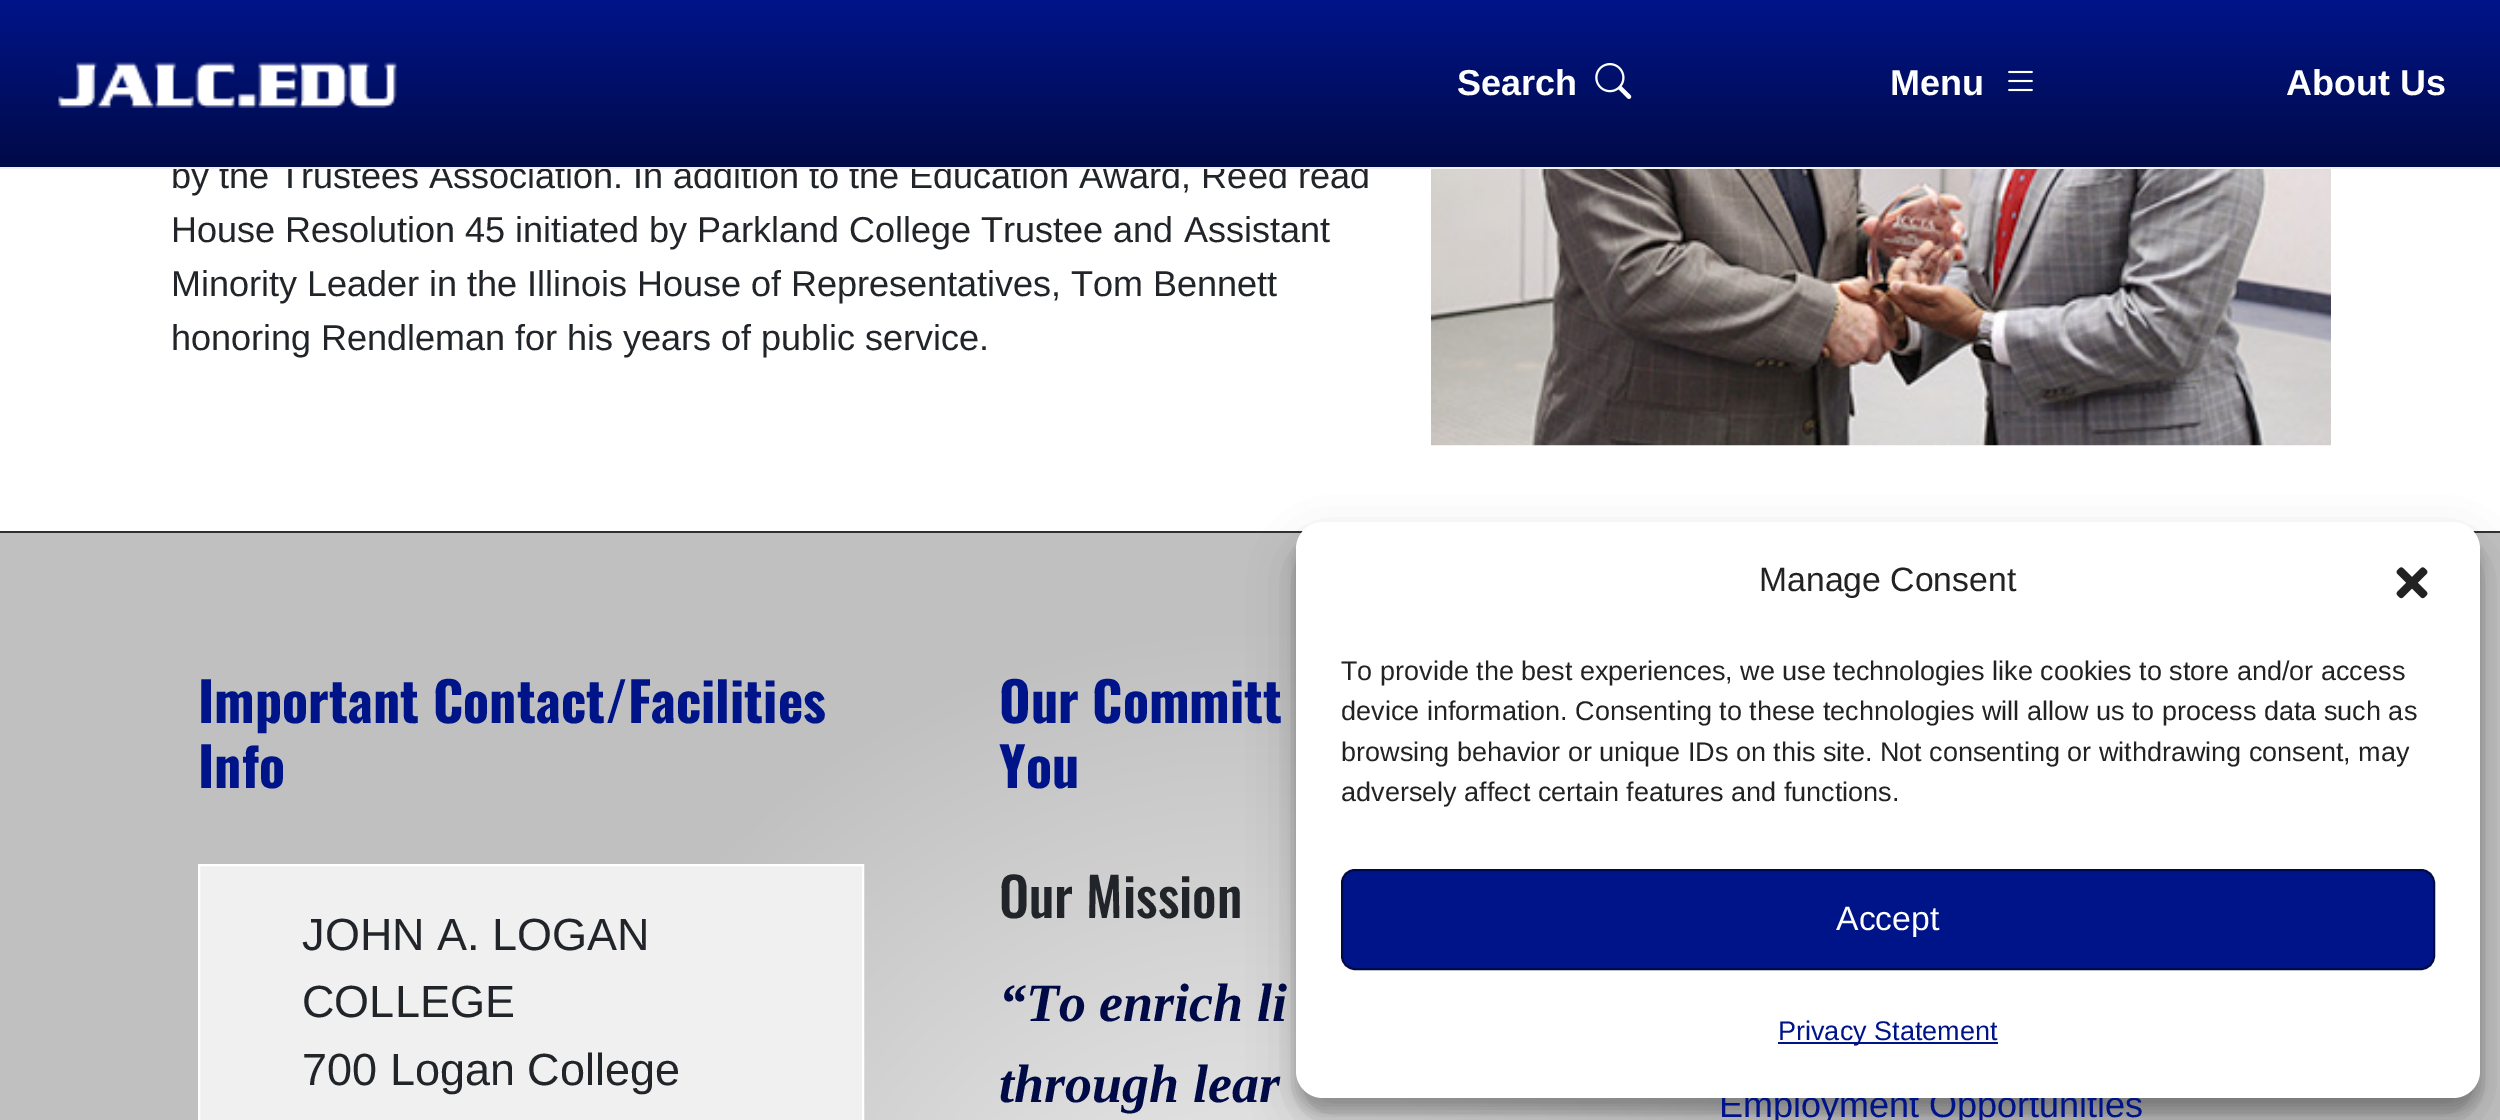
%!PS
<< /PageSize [2500 1120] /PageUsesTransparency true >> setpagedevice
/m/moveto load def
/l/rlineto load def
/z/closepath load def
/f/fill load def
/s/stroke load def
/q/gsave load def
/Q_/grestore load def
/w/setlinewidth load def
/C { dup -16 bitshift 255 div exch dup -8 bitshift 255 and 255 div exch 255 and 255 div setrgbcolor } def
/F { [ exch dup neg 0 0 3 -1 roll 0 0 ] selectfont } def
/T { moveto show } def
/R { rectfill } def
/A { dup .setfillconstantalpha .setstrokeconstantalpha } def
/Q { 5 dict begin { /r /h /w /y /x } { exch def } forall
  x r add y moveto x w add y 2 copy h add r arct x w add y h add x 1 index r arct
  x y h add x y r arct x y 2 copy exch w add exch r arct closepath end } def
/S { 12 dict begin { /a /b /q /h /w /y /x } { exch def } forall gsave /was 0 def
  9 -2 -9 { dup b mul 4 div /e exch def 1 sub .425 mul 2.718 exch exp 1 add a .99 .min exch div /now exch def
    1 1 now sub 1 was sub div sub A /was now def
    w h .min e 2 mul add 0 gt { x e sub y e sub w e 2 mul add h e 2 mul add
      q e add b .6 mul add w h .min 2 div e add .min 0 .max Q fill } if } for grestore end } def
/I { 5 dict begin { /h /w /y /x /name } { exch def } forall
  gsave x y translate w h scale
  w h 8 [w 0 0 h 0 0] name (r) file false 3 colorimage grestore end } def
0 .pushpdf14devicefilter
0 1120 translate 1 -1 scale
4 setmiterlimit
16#FFFFFF C
0 0 2500 1120 R
/LiberationSans-Regular 36 F
16#212529 C
(by the Trustees Association. In addition to the Education Award, Reed read) 171 188 T
q 0 0 m 2500 0 l 0 167 l -2500 0 l z clip newpath
<< /ShadingType 2 /ColorSpace /DeviceRGB /Coords [1251 167 1251 0] /Extend [true true] /Function << /FunctionType 2 /Domain [0 1] /C0 [0 .039 .278] /C1 [0 .078 .537] /N 1 >> >> shfill Q_
16#F0F0F0 C
0 167 2500 2 R
(1.rgb) 58 62 339 46 I
/LiberationSans-Bold 36 F
16#FFFFFF C
(Search) 1457 95 T
(2.rgb) 1595 63 37 36 I
(Menu) 1890 95 T
(3.rgb) 2008 70 25 22 I
(About Us) 2286 95 T
/LiberationSans-Regular 36 F
16#212529 C
(House Resolution 45 initiated by Parkland College Trustee and Assistant) 171 242 T
(Minority Leader in the Illinois House of Representatives, Tom Bennett) 171 296 T
(honoring Rendleman for his years of public service.) 171 350 T
(4.rgb) 1431 169 900 277 I
q 0 533 m 2500 0 l 0 587 l -2500 0 l z clip newpath 1251 1373 translate 1506 1506 scale
<< /ShadingType 3 /ColorSpace /DeviceRGB /Coords [0 0 0 0 0 1] /Extend [true true] /Function << /FunctionType 3 /Domain [0 1] /Functions [<< /FunctionType 2 /Domain [0 1] /C0 [.941 .941 .941] /C1 [.753 .753 .753] /N 1 >> << /FunctionType 2 /Domain [0 1] /C0 [.753 .753 .753] /C1 [.753 .753 .753] /N 1 >>] /Bounds [.5] /Encode [0 1 0 1] >> >> shfill Q_
16#303030 C
0 531 2500 2 R
16#000000 C
1296 536 1184 576 27 7 .23 S
1296 545 1184 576 27 22.5 .19 S
16#001489 C
(Employment Opportunities) 1719 1117 T
16#FFFFFF C
1296 522 1184 576 27 Q f
/LiberationSans-Regular 33.75 F
16#222222 C
(Manage Consent) 1759 591 T
(5.rgb) 2396 567 32 32 I
/LiberationSans-Regular 27 F
(To provide the best experiences, we use technologies like cookies to store and/or access) 1341 680 T
(device information. Consenting to these technologies will allow us to process data such as) 1341 720 T
(browsing behavior or unique IDs on this site. Not consenting or withdrawing consent, may) 1341 761 T
(adversely affect certain features and functions.) 1341 801 T
16#001489 C
1342 870 1092 99 13 Q q f Q_
16#000A47 C
2 w
s
/LiberationSans-Regular 33.75 F
16#FFFFFF C
(Accept) 1836 930 T
16#001489 C
1778 1042 220 2 R
/LiberationSans-Regular 27 F
(Privacy Statement) 1778 1040 T
/Oswald-Bold 54 F
(Important Contact/Facilities) 198 723 T
(Info) 198 788 T
16#F0F0F0 C
199 865 m 664 0 l 0 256 l -664 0 l z q f Q_
16#FFFFFF C
s
/LiberationSans-Regular 45 F
16#212529 C
(JOHN A. LOGAN) 302 950 T
(COLLEGE) 302 1017 T
(700 Logan College) 302 1085 T
/Oswald-Bold 54 F
16#001489 C
(Our Committ) 999 723 T
(You) 999 788 T
/Oswald-Medium 53.5 F
16#212529 C
(Our Mission) 999 918 T
/LiberationSerif-BoldItalic 54 F
16#000A47 C
(“To enrich li) 999 1021 T
(through lear) 999 1102 T
.poppdf14devicefilter showpage
